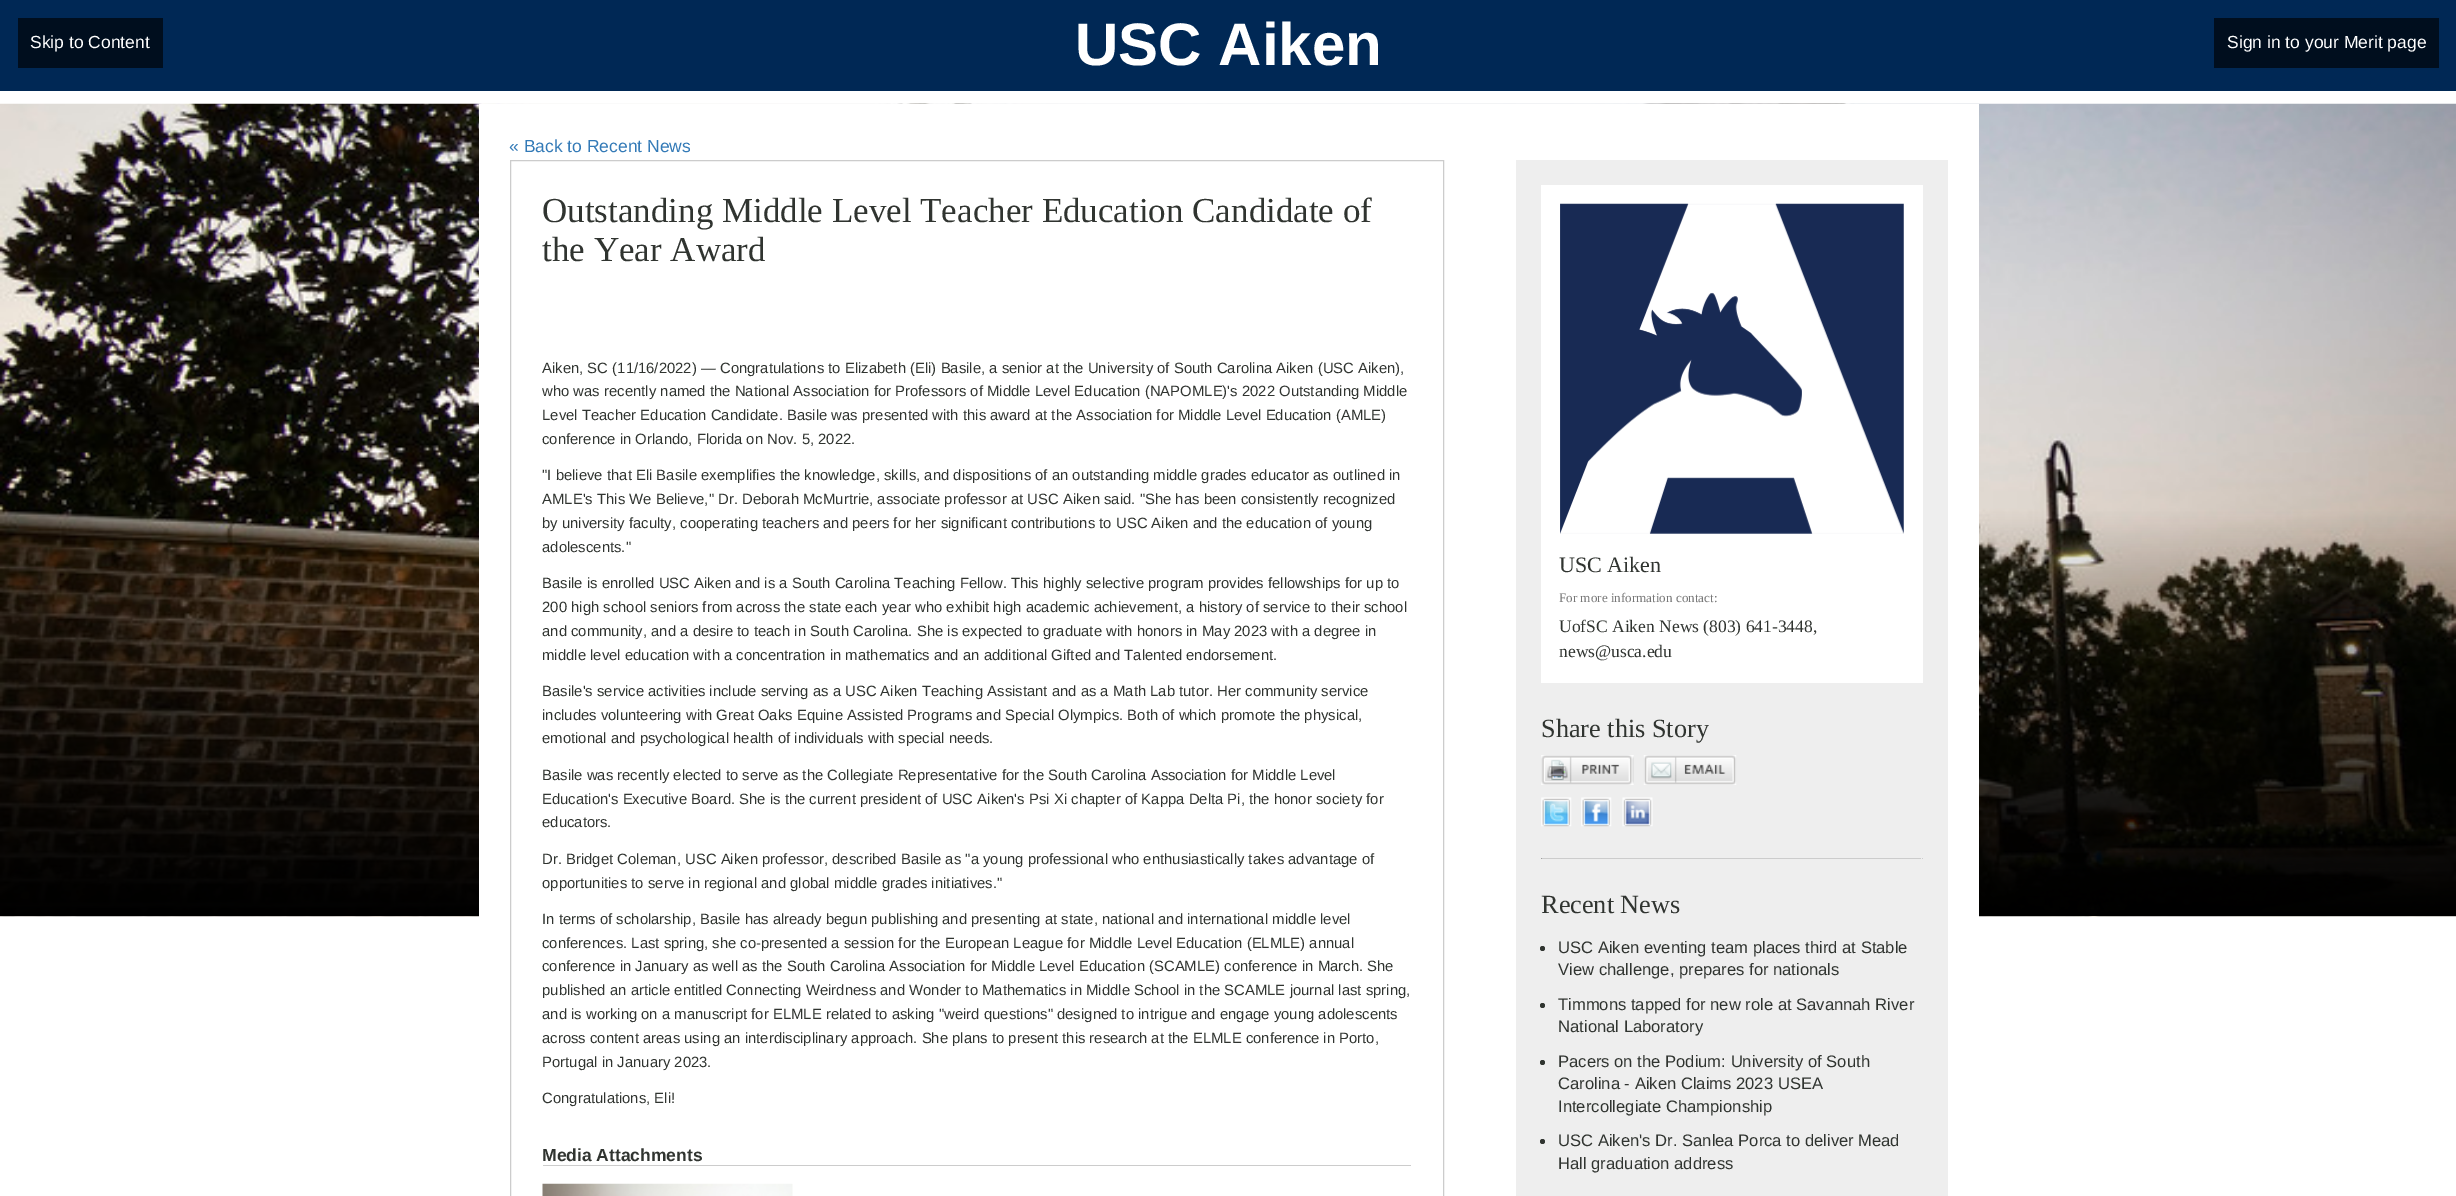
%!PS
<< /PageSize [2456 1196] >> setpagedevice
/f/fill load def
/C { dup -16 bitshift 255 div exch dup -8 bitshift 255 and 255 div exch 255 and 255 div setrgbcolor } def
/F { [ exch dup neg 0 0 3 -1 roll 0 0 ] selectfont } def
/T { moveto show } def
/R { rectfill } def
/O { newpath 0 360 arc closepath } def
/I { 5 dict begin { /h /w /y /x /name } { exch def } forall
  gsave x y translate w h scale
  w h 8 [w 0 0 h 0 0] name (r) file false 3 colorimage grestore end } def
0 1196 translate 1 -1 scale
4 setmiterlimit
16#FFFFFF C
0 0 2456 1196 R
16#002855 C
0 0 2456 91 R
16#000E1E C
18 18 145 50 R
/LiberationSans-Regular 17.5 F
16#FFFFFF C
(Skip to Content) 30 48 T
/LiberationSans-Bold 60 F
(USC Aiken) 1075 65 T
16#000E1E C
2214 18 225 50 R
/LiberationSans-Regular 17.5 F
16#FFFFFF C
(Sign in to your Merit page) 2227 48 T
(1.rgb) 0 103 2456 814 I
479 104 1500 813 R
16#337AB7 C
(« Back to Recent News) 509 152 T
16#CCCCCC C
510.5 160.5 933 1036 rectstroke
/LiberationSerif-Regular 35 F
16#303430 C
(Outstanding Middle Level Teacher Education Candidate of) 542 222 T
(the Year Award) 542 261 T
/LiberationSans-Regular 14.88 F
(Aiken, SC \(11/16/2022\) — Congratulations to Elizabeth \(Eli\) Basile, a senior at the University of South Carolina Aiken \(USC Aiken\),) 542 373 T
(who was recently named the National Association for Professors of Middle Level Education \(NAPOMLE\)'s 2022 Outstanding Middle) 542 396 T
(Level Teacher Education Candidate. Basile was presented with this award at the Association for Middle Level Education \(AMLE\)) 542 420 T
(conference in Orlando, Florida on Nov. 5, 2022.) 542 444 T
("I believe that Eli Basile exemplifies the knowledge, skills, and dispositions of an outstanding middle grades educator as outlined in) 542 480 T
(AMLE's This We Believe," Dr. Deborah McMurtrie, associate professor at USC Aiken said. "She has been consistently recognized) 542 504 T
(by university faculty, cooperating teachers and peers for her significant contributions to USC Aiken and the education of young) 542 528 T
(adolescents.") 542 552 T
(Basile is enrolled USC Aiken and is a South Carolina Teaching Fellow. This highly selective program provides fellowships for up to) 542 588 T
(200 high school seniors from across the state each year who exhibit high academic achievement, a history of service to their school) 542 612 T
(and community, and a desire to teach in South Carolina. She is expected to graduate with honors in May 2023 with a degree in) 542 636 T
(middle level education with a concentration in mathematics and an additional Gifted and Talented endorsement.) 542 660 T
(Basile's service activities include serving as a USC Aiken Teaching Assistant and as a Math Lab tutor. Her community service) 542 696 T
(includes volunteering with Great Oaks Equine Assisted Programs and Special Olympics. Both of which promote the physical,) 542 720 T
(emotional and psychological health of individuals with special needs.) 542 743 T
(Basile was recently elected to serve as the Collegiate Representative for the South Carolina Association for Middle Level) 542 780 T
(Education's Executive Board. She is the current president of USC Aiken's Psi Xi chapter of Kappa Delta Pi, the honor society for) 542 804 T
(educators.) 542 827 T
(Dr. Bridget Coleman, USC Aiken professor, described Basile as "a young professional who enthusiastically takes advantage of) 542 864 T
(opportunities to serve in regional and global middle grades initiatives.") 542 888 T
(In terms of scholarship, Basile has already begun publishing and presenting at state, national and international middle level) 542 924 T
(conferences. Last spring, she co-presented a session for the European League for Middle Level Education \(ELMLE\) annual) 542 948 T
(conference in January as well as the South Carolina Association for Middle Level Education \(SCAMLE\) conference in March. She) 542 971 T
(published an article entitled Connecting Weirdness and Wonder to Mathematics in Middle School in the SCAMLE journal last spring,) 542 995 T
(and is working on a manuscript for ELMLE related to asking "weird questions" designed to intrigue and engage young adolescents) 542 1019 T
(across content areas using an interdisciplinary approach. She plans to present this research at the ELMLE conference in Porto,) 542 1043 T
(Portugal in January 2023.) 542 1067 T
(Congratulations, Eli!) 542 1103 T
16#CCCCCC C
543 1165 868 1 R
/LiberationSans-Bold 17.5 F
16#303430 C
(Media Attachments) 542 1161 T
(2.rgb) 542 1183 251 13 I
16#EEEEEE C
1516 160 432 1036 R
16#FFFFFF C
1541 185 382 498 R
(3.rgb) 1560 203 344 331 I
/LiberationSerif-Regular 22 F
16#303430 C
(USC Aiken) 1559 572 T
/LiberationSerif-Regular 13.1 F
16#777777 C
(For more information contact:) 1559 602 T
/LiberationSerif-Regular 17.5 F
16#303430 C
(UofSC Aiken News \(803\) 641-3448,) 1559 632 T
(news@usca.edu) 1559 657 T
/LiberationSerif-Regular 26.25 F
(Share this Story) 1541 737 T
(4.rgb) 1541 755 93 30 I
(5.rgb) 1643 755 94 30 I
(6.rgb) 1541 797 31 30 I
(7.rgb) 1581 797 31 30 I
(8.rgb) 1622 797 31 30 I
16#CCCCCC C
1541 858 382 1 R
16#EEEEEE C
1921 858 1 1 R
16#9F9F9F C
1541 858 1 1 R
16#303430 C
(Recent News) 1541 913 T
1542.5 948.5 2.5 O f
/LiberationSans-Regular 16.6 F
(USC Aiken eventing team places third at Stable) 1558 953 T
(View challenge, prepares for nationals) 1558 975 T
1542.5 1005.5 2.5 O f
(Timmons tapped for new role at Savannah River) 1558 1010 T
(National Laboratory) 1558 1032 T
1542.5 1062.5 2.5 O f
(Pacers on the Podium: University of South) 1558 1067 T
(Carolina - Aiken Claims 2023 USEA) 1558 1089 T
(Intercollegiate Championship) 1558 1112 T
1542.5 1141.5 2.5 O f
(USC Aiken's Dr. Sanlea Porca to deliver Mead) 1558 1146 T
(Hall graduation address) 1558 1169 T
showpage
